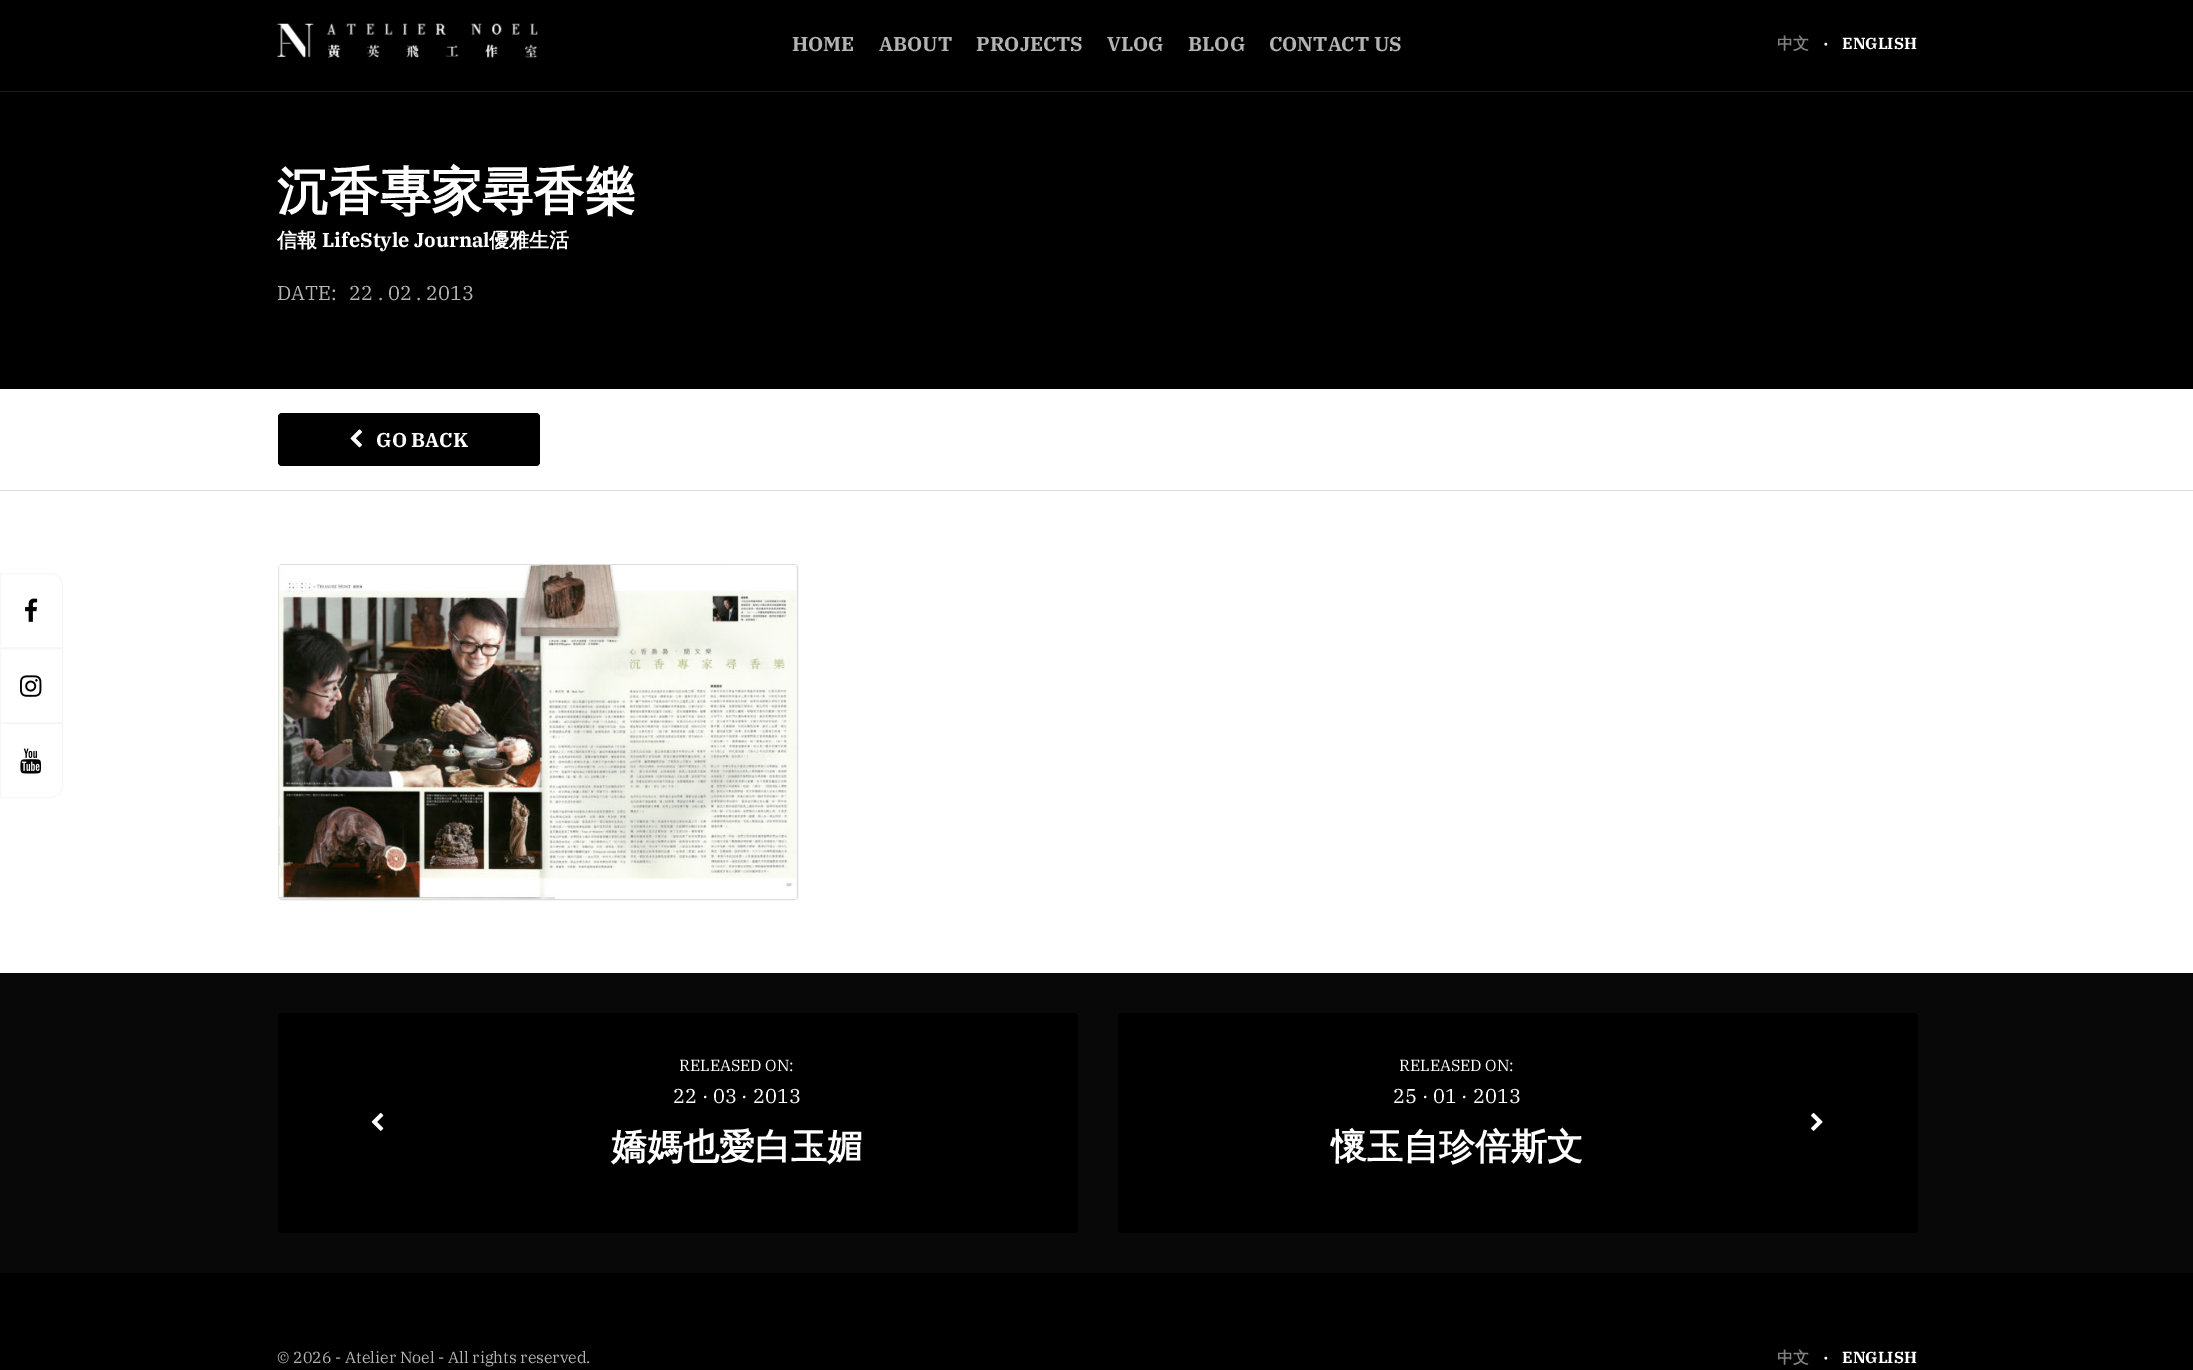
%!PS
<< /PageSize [2193 1370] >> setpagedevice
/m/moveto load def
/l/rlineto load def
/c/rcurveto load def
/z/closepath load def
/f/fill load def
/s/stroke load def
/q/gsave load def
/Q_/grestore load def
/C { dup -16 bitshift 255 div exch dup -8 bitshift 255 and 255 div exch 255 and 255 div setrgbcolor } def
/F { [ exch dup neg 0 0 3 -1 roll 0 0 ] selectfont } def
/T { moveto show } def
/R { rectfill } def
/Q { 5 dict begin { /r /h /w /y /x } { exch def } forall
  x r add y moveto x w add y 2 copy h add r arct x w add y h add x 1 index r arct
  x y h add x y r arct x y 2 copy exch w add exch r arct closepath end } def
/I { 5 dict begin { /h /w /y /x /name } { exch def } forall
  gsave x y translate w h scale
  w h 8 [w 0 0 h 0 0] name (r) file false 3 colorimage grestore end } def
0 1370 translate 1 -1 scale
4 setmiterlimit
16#080808 C
0 0 2193 1370 R
16#000000 C
0 0 2193 389 R
16#1A1A1A C
0 91 2193 1 R
(1.rgb) 277 23 261 35 I
/IBMPlexSerif-Bold 20 F
16#B3B3B3 C
(HOME) 792 51 T
(ABOUT) 879 51 T
(PROJECTS) 976 51 T
(VLOG) 1107 51 T
(BLOG) 1188 51 T
(CONTACT US) 1269 51 T
/WenQuanYiZenHei-Bold 16 F
16#808080 C
(中文) 1777 49 T
/IBMPlexSerif-Bold 16 F
16#FFFFFF C
(·) 1823 49 T
(ENGLISH) 1842 49 T
0 389 2193 584 R
16#F7F7F7 C
.5 573.5 m 49.5 0 l 7 0 12.5 5.5 12.5 12.5 c 0 61.5 l -62 0 l z s
(2.rgb) 25 598 13 24 I
.5 648.5 62 74 rectstroke
(3.rgb) 20 675 22 22 I
.5 723.5 m 62 0 l 0 61.5 l 0 7 -5.5 12.5 -12.5 12.5 c -49.5 0 l z s
(4.rgb) 20 748 22 26 I
/WenQuanYiZenHei-Bold 51.25 F
16#FFFFFF C
(沉香專家尋香樂) 277 209 T
/WenQuanYiZenHei-Bold 20 F
(信報) 277 247 T
/IBMPlexSerif-Bold 20 F
(LifeStyle Journal) 322 247 T
/WenQuanYiZenHei-Bold 20 F
(優雅生活) 489 247 T
/IBMPlexSerif-Regular 20 F
16#B3B3B3 C
(DATE:) 277 300 T
(22 . 02 . 2013) 349 300 T
16#DDDDDD C
0 490 2193 1 R
16#000000 C
278 413 262 53 4 Q f
(5.rgb) 350 429 12 19 I
/IBMPlexSerif-Bold 20 F
16#FFFFFF C
(GO BACK) 376 447 T
16#F7F7F7 C
278.5 564.5 519 335 3.5 Q q f Q_
16#DDDDDD C
s
(6.rgb) 278 565 519 334 I
16#000000 C
278 1013 800 220 4 Q f
(7.rgb) 371 1113 13 18 I
/IBMPlexSerif-Regular 16 F
16#FFFFFF C
(RELEASED ON:) 679 1071 T
/IBMPlexSerif-Regular 20 F
(22 · 03 · 2013) 673 1103 T
/WenQuanYiZenHei-Bold 36 F
(嬌媽也愛白玉媚) 611 1159 T
16#000000 C
1118 1013 800 220 4 Q f
/IBMPlexSerif-Regular 16 F
16#FFFFFF C
(RELEASED ON:) 1399 1071 T
/IBMPlexSerif-Regular 20 F
(25 · 01 · 2013) 1393 1103 T
/WenQuanYiZenHei-Bold 36 F
(懷玉自珍倍斯文) 1331 1159 T
(8.rgb) 1811 1113 12 18 I
16#000000 C
0 1273 2193 97 R
/IBMPlexSerif-Regular 16 F
16#B3B3B3 C
(© 2026 - Atelier Noel - All rights reserved.) 277 1363 T
/WenQuanYiZenHei-Bold 16 F
16#808080 C
(中文) 1777 1363 T
/IBMPlexSerif-Bold 16 F
16#FFFFFF C
(·) 1823 1363 T
(ENGLISH) 1842 1363 T
showpage
